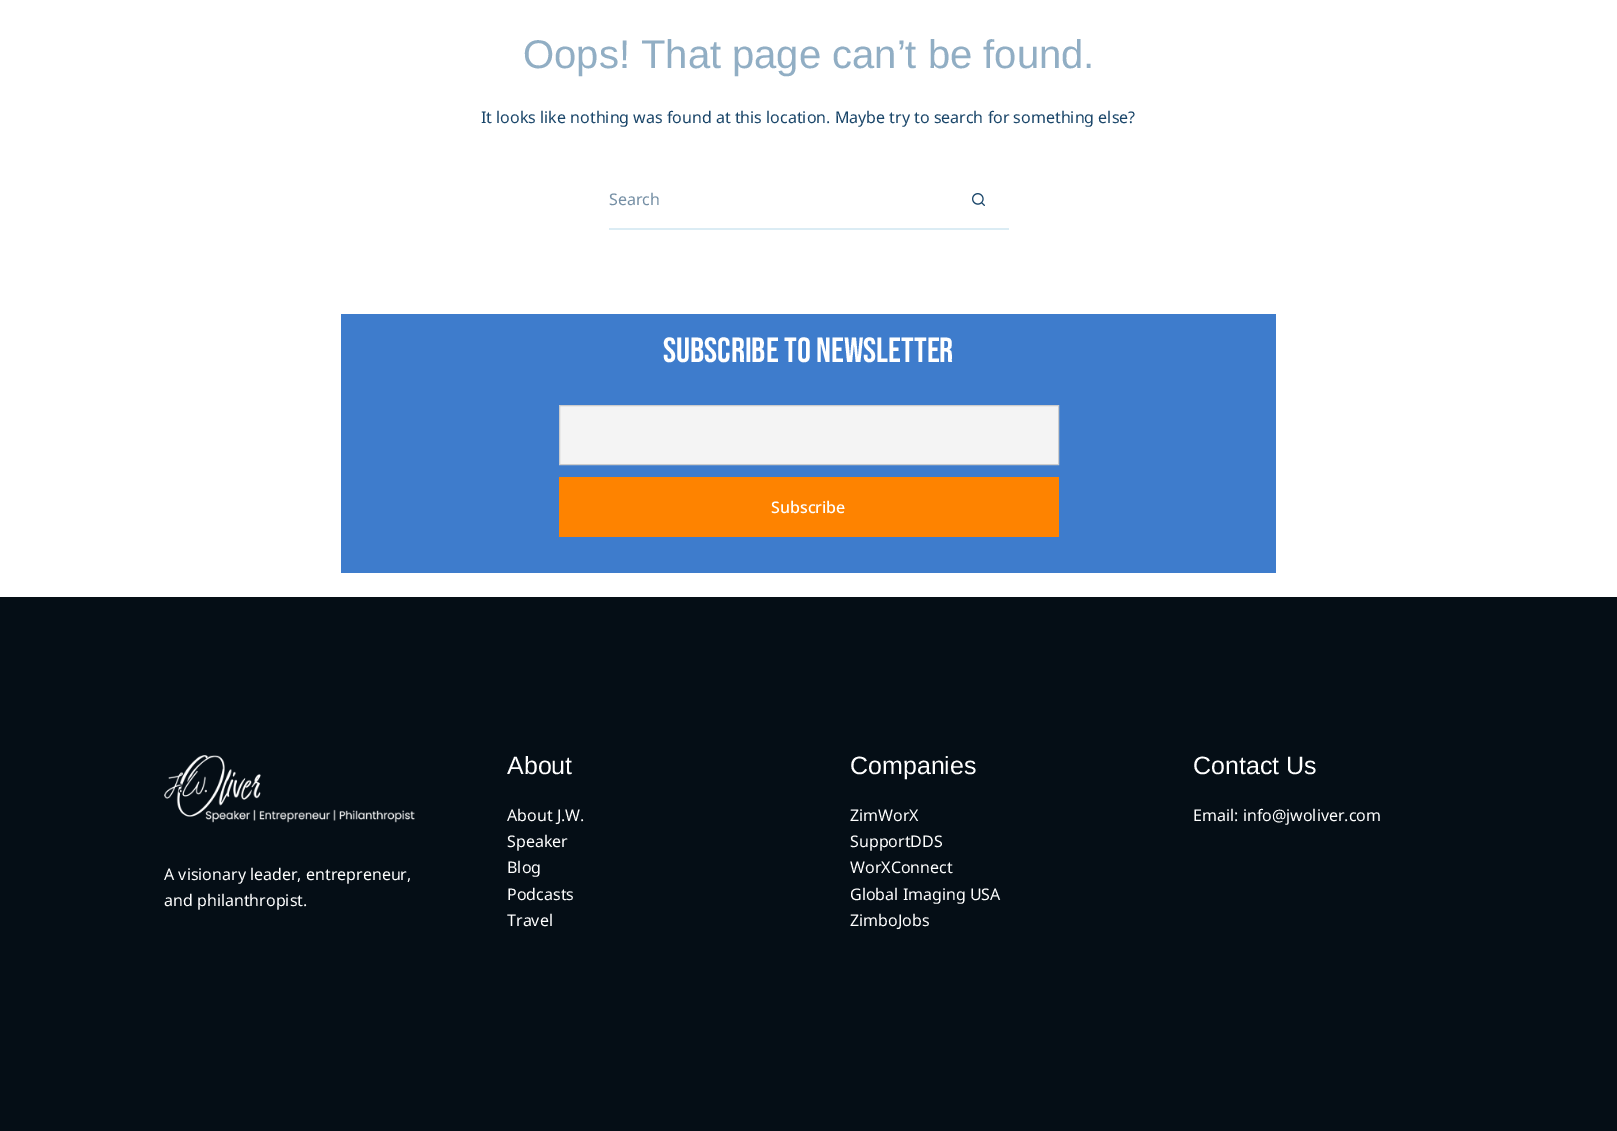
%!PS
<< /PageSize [1617 1131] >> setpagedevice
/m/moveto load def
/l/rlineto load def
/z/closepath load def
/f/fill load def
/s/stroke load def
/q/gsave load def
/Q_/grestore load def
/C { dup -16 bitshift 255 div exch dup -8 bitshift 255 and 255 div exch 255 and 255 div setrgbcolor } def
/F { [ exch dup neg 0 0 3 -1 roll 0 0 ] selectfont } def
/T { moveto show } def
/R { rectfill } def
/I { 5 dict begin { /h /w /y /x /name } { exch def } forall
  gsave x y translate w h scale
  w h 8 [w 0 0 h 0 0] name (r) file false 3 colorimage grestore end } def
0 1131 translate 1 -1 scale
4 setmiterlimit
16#FFFFFF C
0 0 1617 1131 R
/LiberationSans-Regular 40 F
16#91AEC4 C
(Oops! That page can’t be found.) 523 68 T
/NotoSans-Regular 16 F
16#194569 C
(It looks like nothing was found at this location. Maybe try to search for something else?) 481 123 T
16#DBECF4 C
609 228 400 2 R
16#758FA5 C
(Search) 609 205 T
(1.rgb) 972 193 13 13 I
16#050E16 C
0 597 1617 534 R
16#3E7CCC C
341 314 935 259 R
/BebasNeue-Regular 35 F
16#FFFFFF C
(Subscribe to newsletter) 663 362 T
16#F4F4F4 C
559.5 405.5 m 499 0 l 0 59 l -499 0 l z q f Q_
16#CCCCCC C
s
16#FE8300 C
559 477 500 60 R
/NotoSans-Medium 16 F
16#FFFFFF C
(Subscribe) 771 513 T
/LiberationSans-Regular 25 F
(About) 507 774 T
/NotoSans-Regular 16 F
(About J.W.) 507 821 T
(Speaker) 507 847 T
(Blog) 507 873 T
(Podcasts) 507 900 T
(Travel) 507 926 T
/LiberationSans-Regular 25 F
(Companies) 850 774 T
/NotoSans-Regular 16 F
(ZimWorX) 850 821 T
(SupportDDS) 850 847 T
(WorXConnect) 850 873 T
(Global Imaging USA) 850 900 T
(ZimboJobs) 850 926 T
/LiberationSans-Regular 25 F
(Contact Us) 1193 774 T
/NotoSans-Regular 16 F
(Email: info@jwoliver.com) 1193 821 T
(2.rgb) 164 755 251 68 I
(A visionary leader, entrepreneur,) 164 880 T
(and philanthropist.) 164 906 T
showpage
